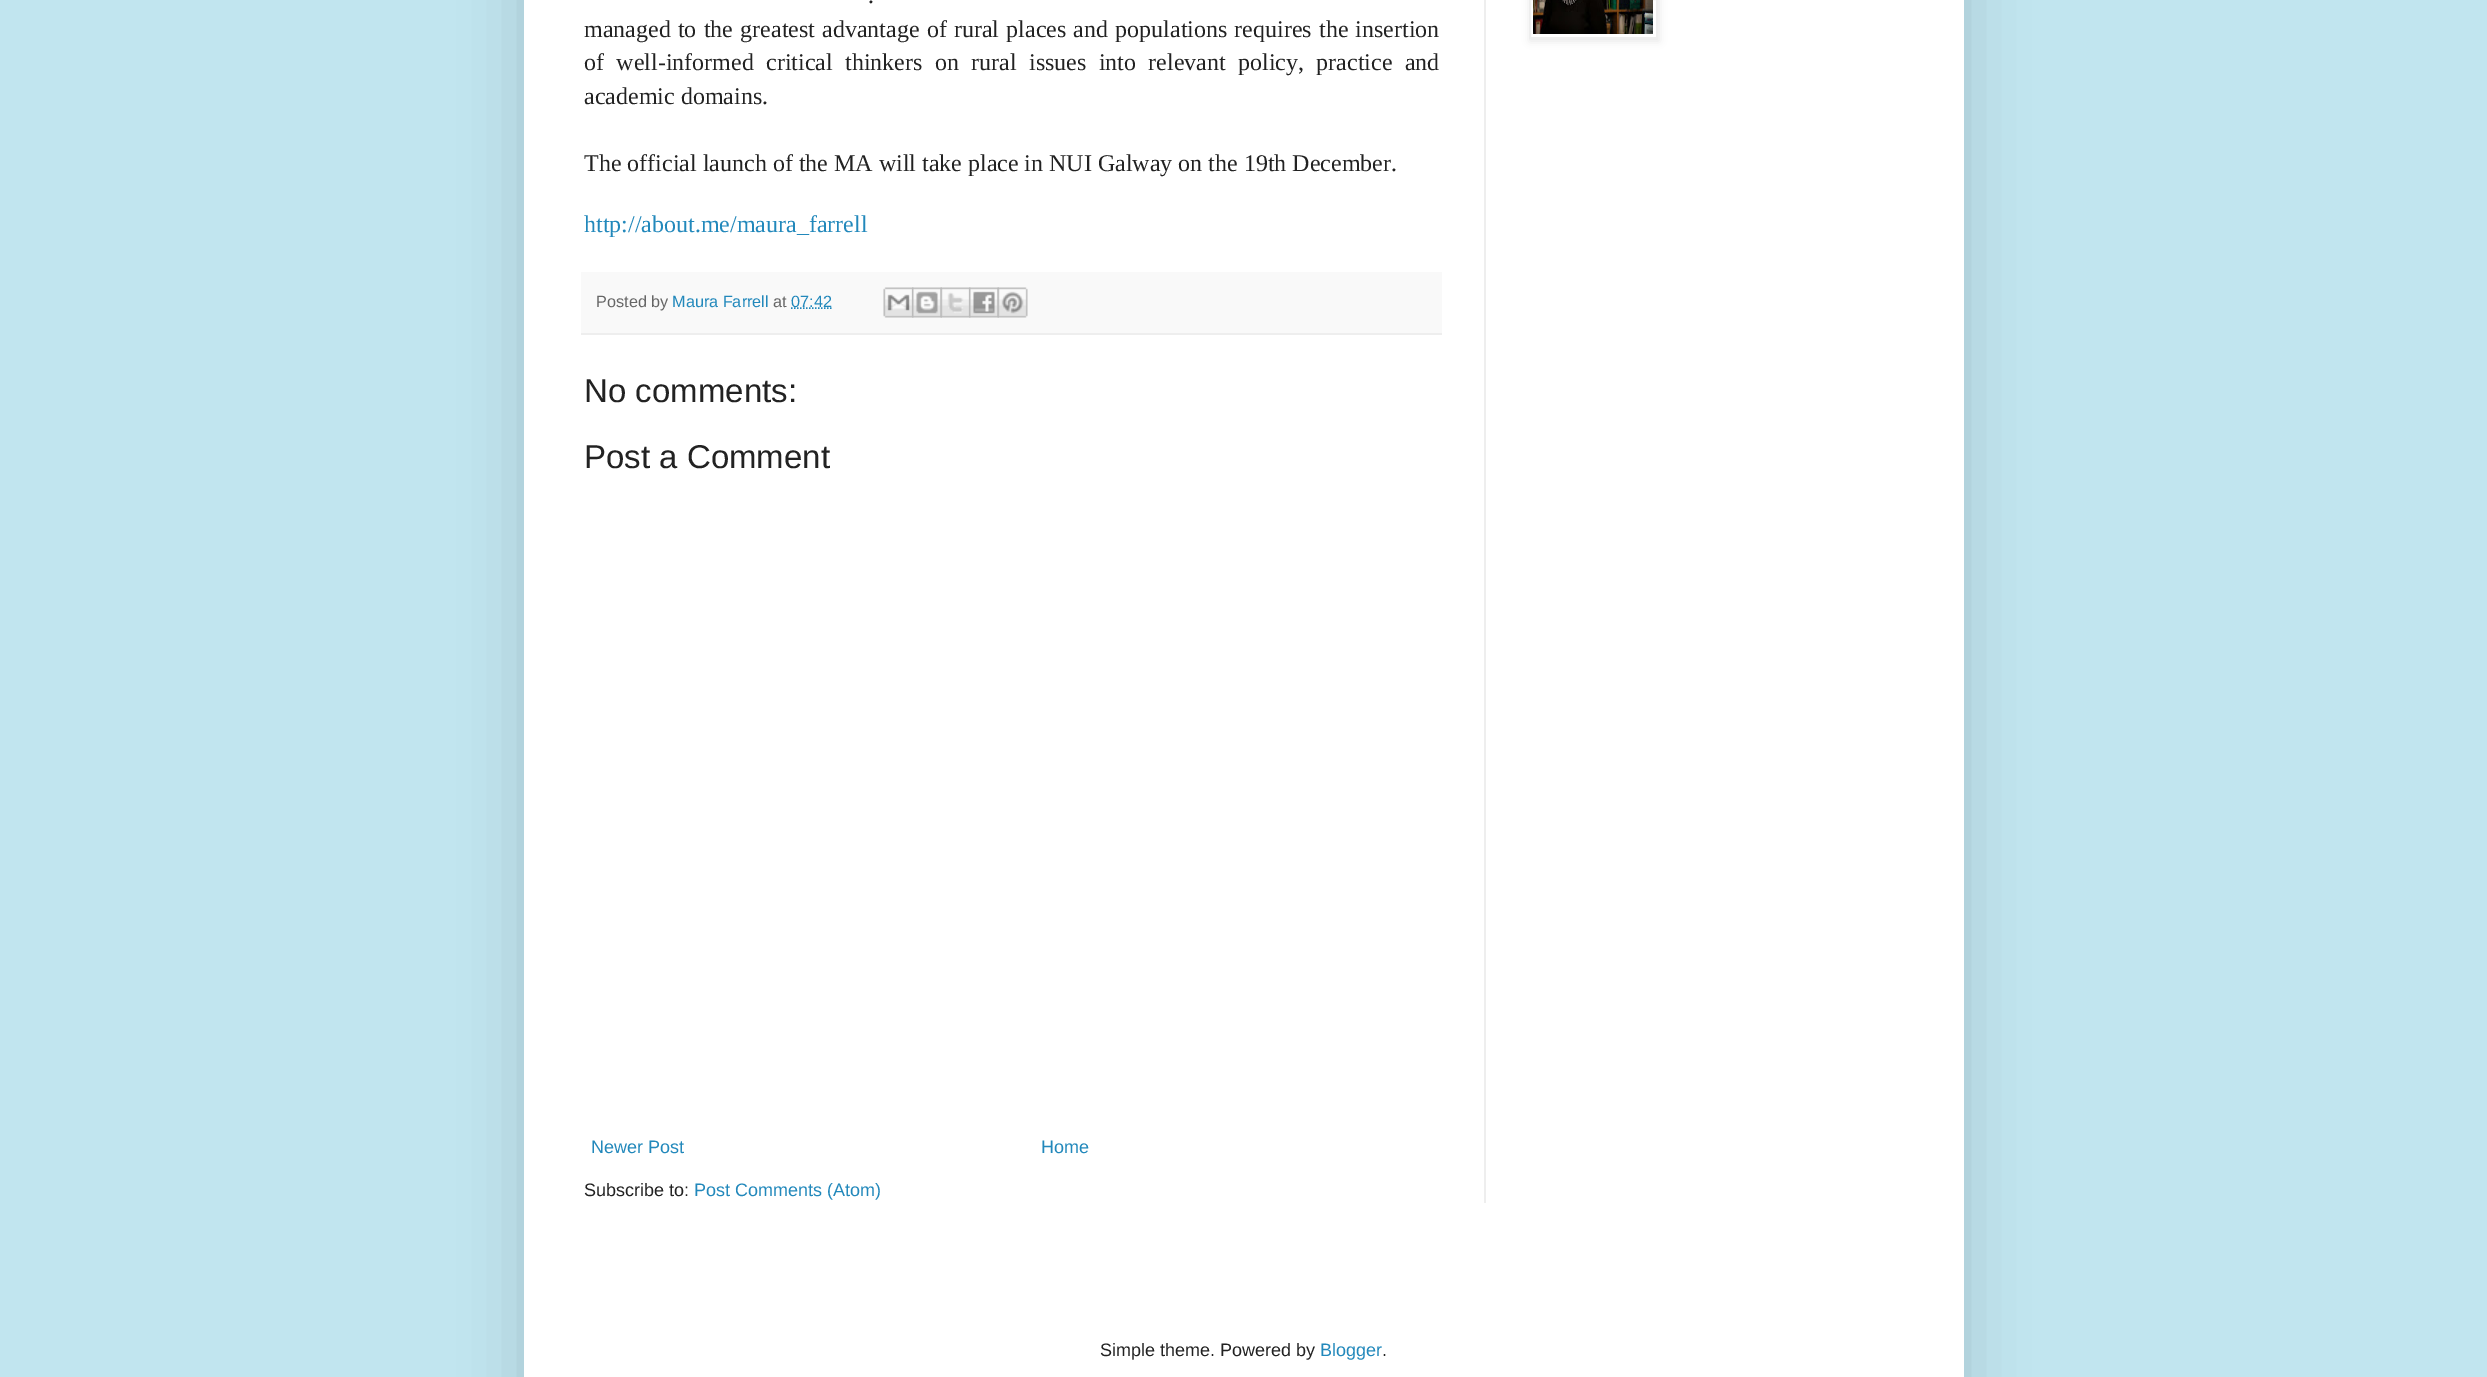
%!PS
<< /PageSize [2487 1377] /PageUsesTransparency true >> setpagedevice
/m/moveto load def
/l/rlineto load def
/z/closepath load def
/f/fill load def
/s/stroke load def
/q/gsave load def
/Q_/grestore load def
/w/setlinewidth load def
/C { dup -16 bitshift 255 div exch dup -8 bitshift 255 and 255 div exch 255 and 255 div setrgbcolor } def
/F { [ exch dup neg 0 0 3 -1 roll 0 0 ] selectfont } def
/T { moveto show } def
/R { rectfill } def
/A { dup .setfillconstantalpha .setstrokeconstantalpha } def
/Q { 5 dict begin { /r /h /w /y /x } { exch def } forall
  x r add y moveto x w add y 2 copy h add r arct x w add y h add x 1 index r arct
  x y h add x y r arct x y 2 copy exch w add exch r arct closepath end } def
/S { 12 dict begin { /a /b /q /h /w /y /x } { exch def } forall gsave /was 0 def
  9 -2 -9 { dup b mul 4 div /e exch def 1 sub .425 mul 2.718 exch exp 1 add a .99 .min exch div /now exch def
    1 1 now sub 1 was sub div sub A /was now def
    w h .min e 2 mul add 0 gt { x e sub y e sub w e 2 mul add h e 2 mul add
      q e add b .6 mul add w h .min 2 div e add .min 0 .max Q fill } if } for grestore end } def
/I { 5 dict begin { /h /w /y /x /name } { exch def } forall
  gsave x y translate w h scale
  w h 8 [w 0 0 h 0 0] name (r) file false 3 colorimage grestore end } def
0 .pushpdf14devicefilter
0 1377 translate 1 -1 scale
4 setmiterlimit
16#C1E5EF C
0 0 2487 1377 R
16#000000 C
524 -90 1440 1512 0 30 .15 S
16#FFFFFF C
524 0 1440 1377 R
/LiberationSerif-Regular 24 F
16#222222 C
868 3 m 4 0 32 (.) widthshow
584 37 m 1.2 0 32 (managed to the greatest advantage of rural places and populations requires the insertion) widthshow
584 70 m 6.4 0 32 (of well-informed critical thinkers on rural issues into relevant policy, practice and) widthshow
(academic domains.) 584 104 T
(The official launch of the MA will take place in NUI Galway on the 19th December.) 584 171 T
16#2288BB C
(http://about.me/maura_farrell) 584 232 T
16#F9F9F9 C
581 272 861 61 R
16#EEEEEE C
581 333 861 2 R
/LiberationSans-Regular 16.25 F
16#666666 C
(Posted by) 596 307 T
16#2288BB C
(Maura Farrell) 672 307 T
16#666666 C
(at) 773 307 T
16#2288BB C
1.5 w
[1.5 1.5] 0 setdash
791 308 m 40.5 0 l s
(07:42) 791 307 T
(1.rgb) 883 287 31 31 I
(2.rgb) 912 287 30 31 I
(3.rgb) 940 287 31 31 I
(4.rgb) 969 287 30 31 I
(5.rgb) 997 287 31 31 I
/LiberationSans-Regular 33 F
16#222222 C
(No comments:) 584 402 T
(Post a Comment) 584 468 T
/LiberationSans-Regular 18 F
16#2288BB C
(Newer Post) 591 1153 T
(Home) 1041 1153 T
16#222222 C
(Subscribe to:) 584 1196 T
16#2288BB C
(Post Comments \(Atom\)) 694 1196 T
16#000000 C
1530 -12 129 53 0 4 .1 S
16#FFFFFF C
1530 -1 m 127 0 l 0 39 l -127 0 l z q f Q_
16#EEEEEE C
2 w
[] 0 setdash
s
(6.rgb) 1533 0 120 34 I
1484 0 2 1203 R
16#222222 C
(Simple theme. Powered by) 1100 1356 T
16#2288BB C
(Blogger) 1320 1356 T
16#222222 C
(.) 1382 1356 T
.poppdf14devicefilter showpage
